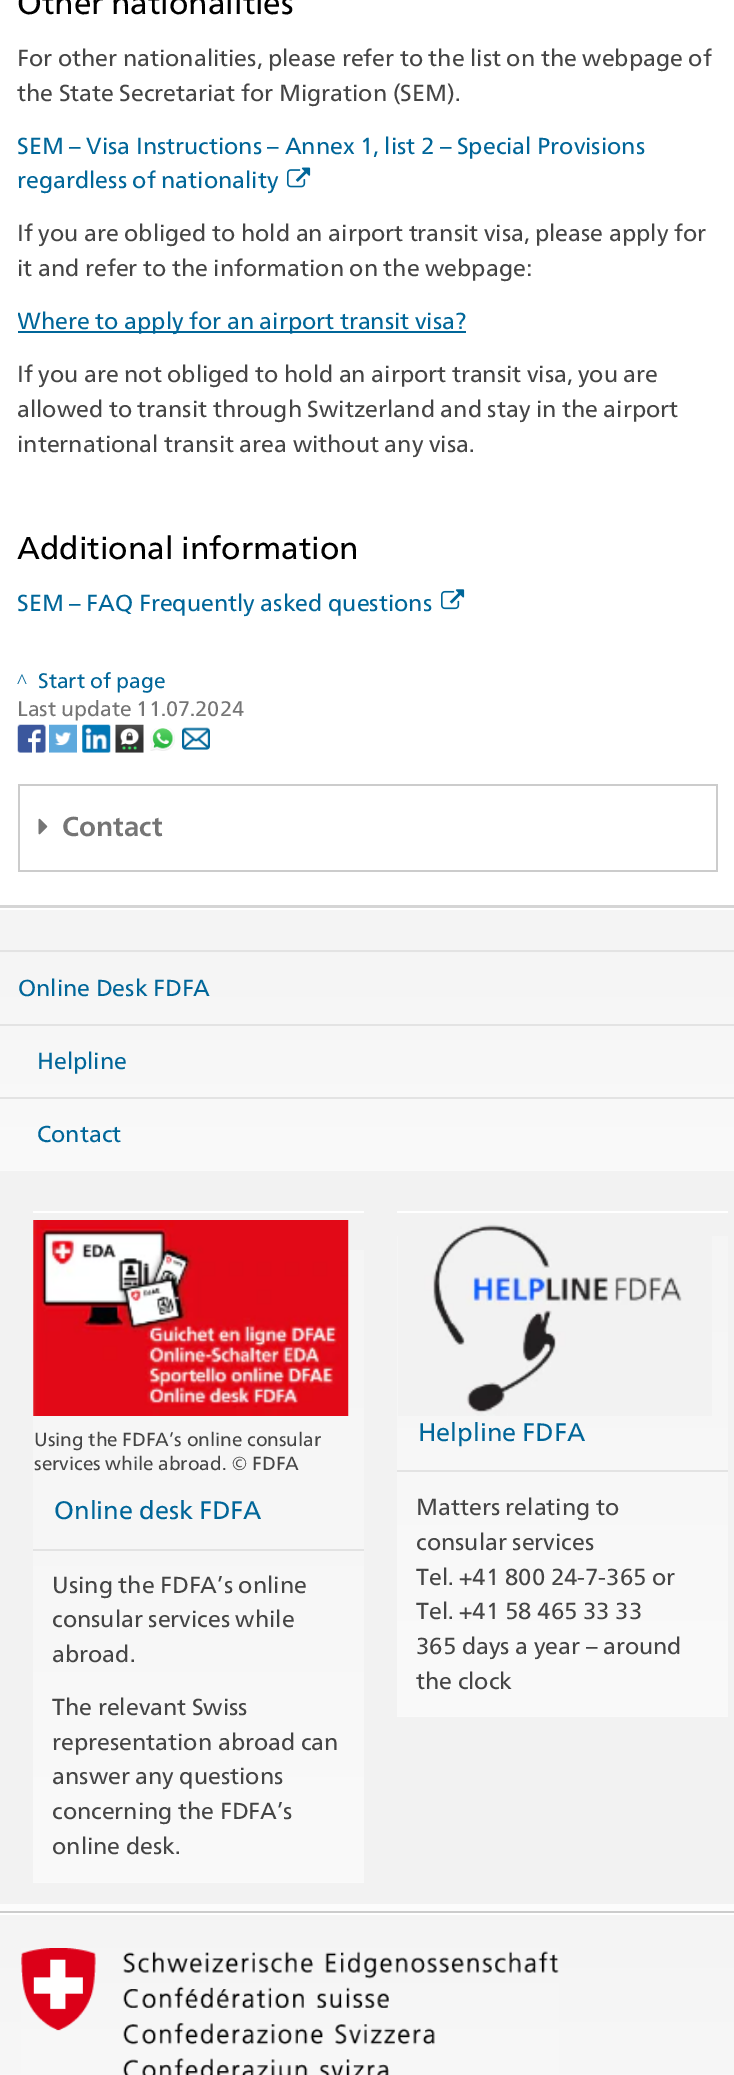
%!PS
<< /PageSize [734 2075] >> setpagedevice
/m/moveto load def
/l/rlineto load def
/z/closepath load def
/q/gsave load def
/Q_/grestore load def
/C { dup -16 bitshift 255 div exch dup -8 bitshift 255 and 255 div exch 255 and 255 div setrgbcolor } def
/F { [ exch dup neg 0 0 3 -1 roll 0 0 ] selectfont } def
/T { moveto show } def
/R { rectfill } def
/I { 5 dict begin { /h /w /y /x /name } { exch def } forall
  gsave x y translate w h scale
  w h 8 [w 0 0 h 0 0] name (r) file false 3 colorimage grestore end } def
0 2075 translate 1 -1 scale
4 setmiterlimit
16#FFFFFF C
0 0 734 2075 R
/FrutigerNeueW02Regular-Regular 31.5 F
16#000000 C
(Other nationalities) 17 14 T
/FrutigerNeueW02Regular-Regular 23.1 F
16#454545 C
(For other nationalities, please refer to the list on the webpage of) 17 66 T
(the State Secretariat for Migration \(SEM\).) 17 101 T
16#006699 C
(SEM – Visa Instructions – Annex 1, list 2 – Special Provisions) 17 154 T
(regardless of nationality) 17 188 T
(1.rgb) 287 167 24 21 I
16#454545 C
(If you are obliged to hold an airport transit visa, please apply for) 17 241 T
(it and refer to the information on the webpage:) 17 276 T
16#006699 C
18 331 448 2 R
q
18 0 700 641 rectclip
(Where to apply for an airport transit visa?) 17 329 T
Q_
16#454545 C
(If you are not obliged to hold an airport transit visa, you are) 17 382 T
(allowed to transit through Switzerland and stay in the airport) 17 417 T
(international transit area without any visa.) 17 452 T
/FrutigerNeueW02Regular-Regular 31.5 F
16#000000 C
(Additional information) 17 559 T
/FrutigerNeueW02Regular-Regular 23.1 F
16#006699 C
(SEM – FAQ Frequently asked questions) 17 611 T
(2.rgb) 441 589 24 21 I
/LiberationSerif-Regular 21 F
(^) 17 688 T
/FrutigerNeueW02Regular-Regular 21 F
(Start of page) 38 688 T
16#757575 C
(Last update 11.07.2024) 17 716 T
(3.rgb) 17 724 29 29 I
(4.rgb) 49 724 28 29 I
(5.rgb) 82 724 29 29 I
(6.rgb) 115 724 29 29 I
(7.rgb) 150 728 25 23 I
(8.rgb) 182 727 28 23 I
16#CCCCCC C
18 870 700 2 R
18 784 700 2 R
716 784 2 86 R
18 784 2 86 R
(9.rgb) 38 818 10 17 I
/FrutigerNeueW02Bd-Bold 27.5 F
16#757575 C
(Contact) 62 836 T
16#F2F2F2 C
0 1171 734 733 R
16#D5D5D5 C
0 905 734 3 R
q 0 910 m 734 0 l 0 261 l -734 0 l z clip newpath
<< /ShadingType 2 /ColorSpace /DeviceRGB /Coords [368 908 368 1171] /Extend [true true] /Function << /FunctionType 2 /Domain [0 1] /C0 [.957 .957 .957] /C1 [.98 .98 .98] /N 1 >> >> shfill Q_
16#E3E3E3 C
0 950 734 2 R
/FrutigerNeueW02Regular-Regular 23.1 F
16#006699 C
(Online Desk FDFA) 18 996 T
16#E3E3E3 C
0 1024 734 2 R
16#006699 C
(Helpline) 37 1069 T
16#E3E3E3 C
0 1097 734 2 R
16#006699 C
(Contact) 37 1142 T
q 33 1250 m 331 0 l 0 633 l -331 0 l z clip newpath
<< /ShadingType 2 /ColorSpace /DeviceRGB /Coords [199 1192 199 1883] /Extend [true true] /Function << /FunctionType 2 /Domain [0 1] /C0 [.957 .957 .957] /C1 [.98 .98 .98] /N 1 >> >> shfill Q_
(10.rgb) 33 1220 316 196 I
/FrutigerNeueW02Regular-Regular 18.9 F
16#454545 C
(Using the FDFA’s online consular) 34 1446 T
(services while abroad. © FDFA) 34 1470 T
16#FFFFFF C
33 1211 331 2 R
16#E3E3E3 C
33 1549 331 2 R
/FrutigerNeueW02Regular-Regular 25.25 F
16#006699 C
(Online desk FDFA) 54 1519 T
/FrutigerNeueW02Regular-Regular 23.1 F
16#454545 C
(Using the FDFA’s online) 52 1593 T
(consular services while) 52 1627 T
(abroad.) 52 1662 T
(The relevant Swiss) 52 1715 T
(representation abroad can) 52 1750 T
(answer any questions) 52 1784 T
(concerning the FDFA’s) 52 1819 T
(online desk.) 52 1854 T
q 397 1236 m 331 0 l 0 481 l -331 0 l z clip newpath
<< /ShadingType 2 /ColorSpace /DeviceRGB /Coords [563 1192 563 1717] /Extend [true true] /Function << /FunctionType 2 /Domain [0 1] /C0 [.957 .957 .957] /C1 [.98 .98 .98] /N 1 >> >> shfill Q_
(11.rgb) 398 1223 314 193 I
16#FFFFFF C
397 1211 331 2 R
16#E3E3E3 C
397 1470 331 2 R
/FrutigerNeueW02Regular-Regular 25.25 F
16#006699 C
(Helpline FDFA) 418 1441 T
/FrutigerNeueW02Regular-Regular 23.1 F
16#454545 C
(Matters relating to) 416 1515 T
(consular services) 416 1550 T
(Tel. +41 800 24-7-365 or) 416 1585 T
(Tel. +41 58 465 33 33) 416 1619 T
(365 days a year – around) 416 1654 T
(the clock) 416 1689 T
16#FCFCFC C
0 1904 734 7 R
16#CCCCCC C
0 1911 734 2 R
q 0 1915 m 734 0 l 0 160 l -734 0 l z clip newpath
<< /ShadingType 2 /ColorSpace /DeviceRGB /Coords [368 1913 368 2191] /Extend [true true] /Function << /FunctionType 2 /Domain [0 1] /C0 [.957 .957 .957] /C1 [.98 .98 .98] /N 1 >> >> shfill Q_
(12.rgb) 21 1948 538 127 I
showpage
